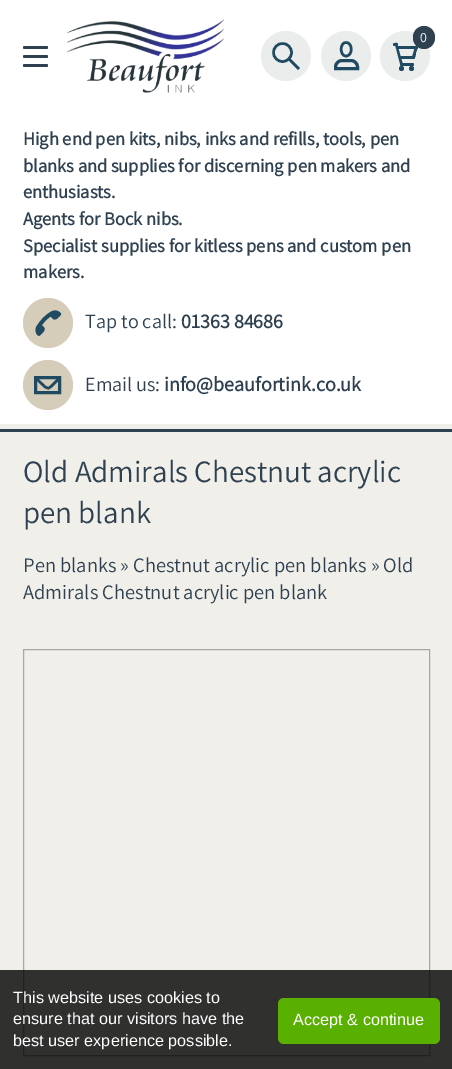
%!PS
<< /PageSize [452 1069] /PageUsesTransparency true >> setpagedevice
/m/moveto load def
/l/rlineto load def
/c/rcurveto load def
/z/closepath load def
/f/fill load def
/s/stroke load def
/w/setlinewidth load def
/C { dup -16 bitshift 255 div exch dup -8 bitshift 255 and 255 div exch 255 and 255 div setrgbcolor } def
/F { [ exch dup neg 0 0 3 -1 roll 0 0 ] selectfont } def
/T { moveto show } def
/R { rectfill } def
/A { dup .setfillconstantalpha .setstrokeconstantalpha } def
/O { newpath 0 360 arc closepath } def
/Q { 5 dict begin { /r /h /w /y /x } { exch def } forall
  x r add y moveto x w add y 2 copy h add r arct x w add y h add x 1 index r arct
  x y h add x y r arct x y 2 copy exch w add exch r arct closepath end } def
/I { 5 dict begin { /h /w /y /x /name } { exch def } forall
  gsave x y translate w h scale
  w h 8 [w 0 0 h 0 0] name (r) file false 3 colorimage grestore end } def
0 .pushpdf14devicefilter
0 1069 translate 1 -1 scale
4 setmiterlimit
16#F0EFEA C
0 0 452 1069 R
16#FFFFFF C
0 0 452 424 R
16#2F4150 C
23 46 25 3 1.5 Q f
23 55 25 3 1.5 Q f
23 64 25 3 1.5 Q f
(1.rgb) 66 19 159 74 I
16#EBEDED C
286 56 25 O f
16#204962 C
2.5 w
282.5 52.5 9 O s
1 setlinejoin
289 59 m 10 10 l s
16#EBEDED C
346 56 25 O f
16#204962 C
0 setlinejoin
346 42.5 m 7 0 7 13.5 0 13.5 c -6.5 0 -6.5 -13.5 0 -13.5 c z s
3 w
342 60.5 m 9 0 l 3.5 0 6.5 3 6.5 6.5 c 0 1.5 l -22 0 l 0 -1.5 l 0 -3.5 3 -6.5 6.5 -6.5 c z s
16#EBEDED C
405 56 25 O f
16#2F4150 C
413 26 22 23 11 Q f
/Assistant-ExtraLight 14 F
16#FFFFFF C
(0) 420 42 T
16#204962 C
395.5 43 m 1 -.5 1.5 0 1.5 .5 c 5.5 19.5 l 0 .5 -.5 1.5 -1 1.5 c -.5 0 -1.5 0 -1.5 -1 c -5 -19 l -.5 -1 0 -1.5 .5 -1.5 c z f
393 43 5 3 1.5 Q f
396 46 22 3 1.5 Q f
416.5 46.5 m 2 .5 0 5 -.5 6 c 0 1.5 -.5 6.5 -3 6 c -2 -.5 .5 -5.5 .5 -6.5 c .5 -1 1 -6 3 -5.5 c z f
400 56 15 3 1.5 Q f
400 63 14 3 1.5 Q f
401.5 68.5 2.5 O f
411.5 68.5 2.5 O f
/Assistant-Bold 18.5 F
16#2F4150 C
(High end pen kits, nibs, inks and refills, tools, pen) 23 145 T
(blanks and supplies for discerning pen makers and) 23 172 T
(enthusiasts.) 23 198 T
(Agents for Bock nibs.) 23 225 T
(Specialist supplies for kitless pens and custom pen) 23 252 T
(makers.) 23 278 T
16#D5CDB9 C
48 323 25 O f
16#204962 C
37 325.5 m 2 -2 l 4 3 8 4 4 9 c -3 3 l -2.5 1.5 -4.5 -3 -4.5 -5 c 0 -1.5 .5 -3.5 1.5 -5 c z 48.5 314 m 2.5 -2 l 2.5 -2.5 7 -2 9.5 1 c 1 .5 .5 1.5 0 2.5 c -4 3.5 l -1.5 1 -3 .5 -4 -.5 c z f
3.8 w
38.5 327.5 m 2.5 -6 8.5 -11.5 14 -14.5 c s
/Assistant-ExtraLight 20.1 F
16#2F4150 C
(Tap to call:) 85 328 T
/Assistant-Bold 20.1 F
(01363 84686) 181 328 T
16#D5CDB9 C
48 385 25 O f
16#204962 C
3 w
35.5 377.5 24 15 rectstroke
2.5 w
58.5 377.5 m 0 2 -2 3.5 -3.5 5 c -7 7 -6.5 8 -13.5 1 c -1.5 -1.5 -4.5 -3.5 -4.5 -6 c s
/Assistant-ExtraLight 20.1 F
16#2F4150 C
(Email us:) 85 391 T
/Assistant-Bold 20.1 F
(info@beaufortink.co.uk) 164 391 T
0 429 452 3 R
/Assistant-ExtraLight 31 F
(Old Admirals Chestnut acrylic) 23 482 T
(pen blank) 23 523 T
/Assistant-ExtraLight 20.5 F
(Pen blanks » Chestnut acrylic pen blanks » Old) 23 572 T
(Admirals Chestnut acrylic pen blank) 23 599 T
16#A8A7A4 C
1 w
23.5 649.5 406 406 rectstroke
0.8 A
16#000000 C
0 970 452 99 R
/LiberationSans-Regular 16.25 F
1 A
16#FFFFFF C
(This website uses cookies to) 13 1003 T
(ensure that our visitors have the) 13 1024 T
(best user experience possible.) 13 1046 T
16#59B000 C
278 998 162 46 6 Q f
16#FFFFFF C
(Accept & continue) 293 1025 T
.poppdf14devicefilter showpage
